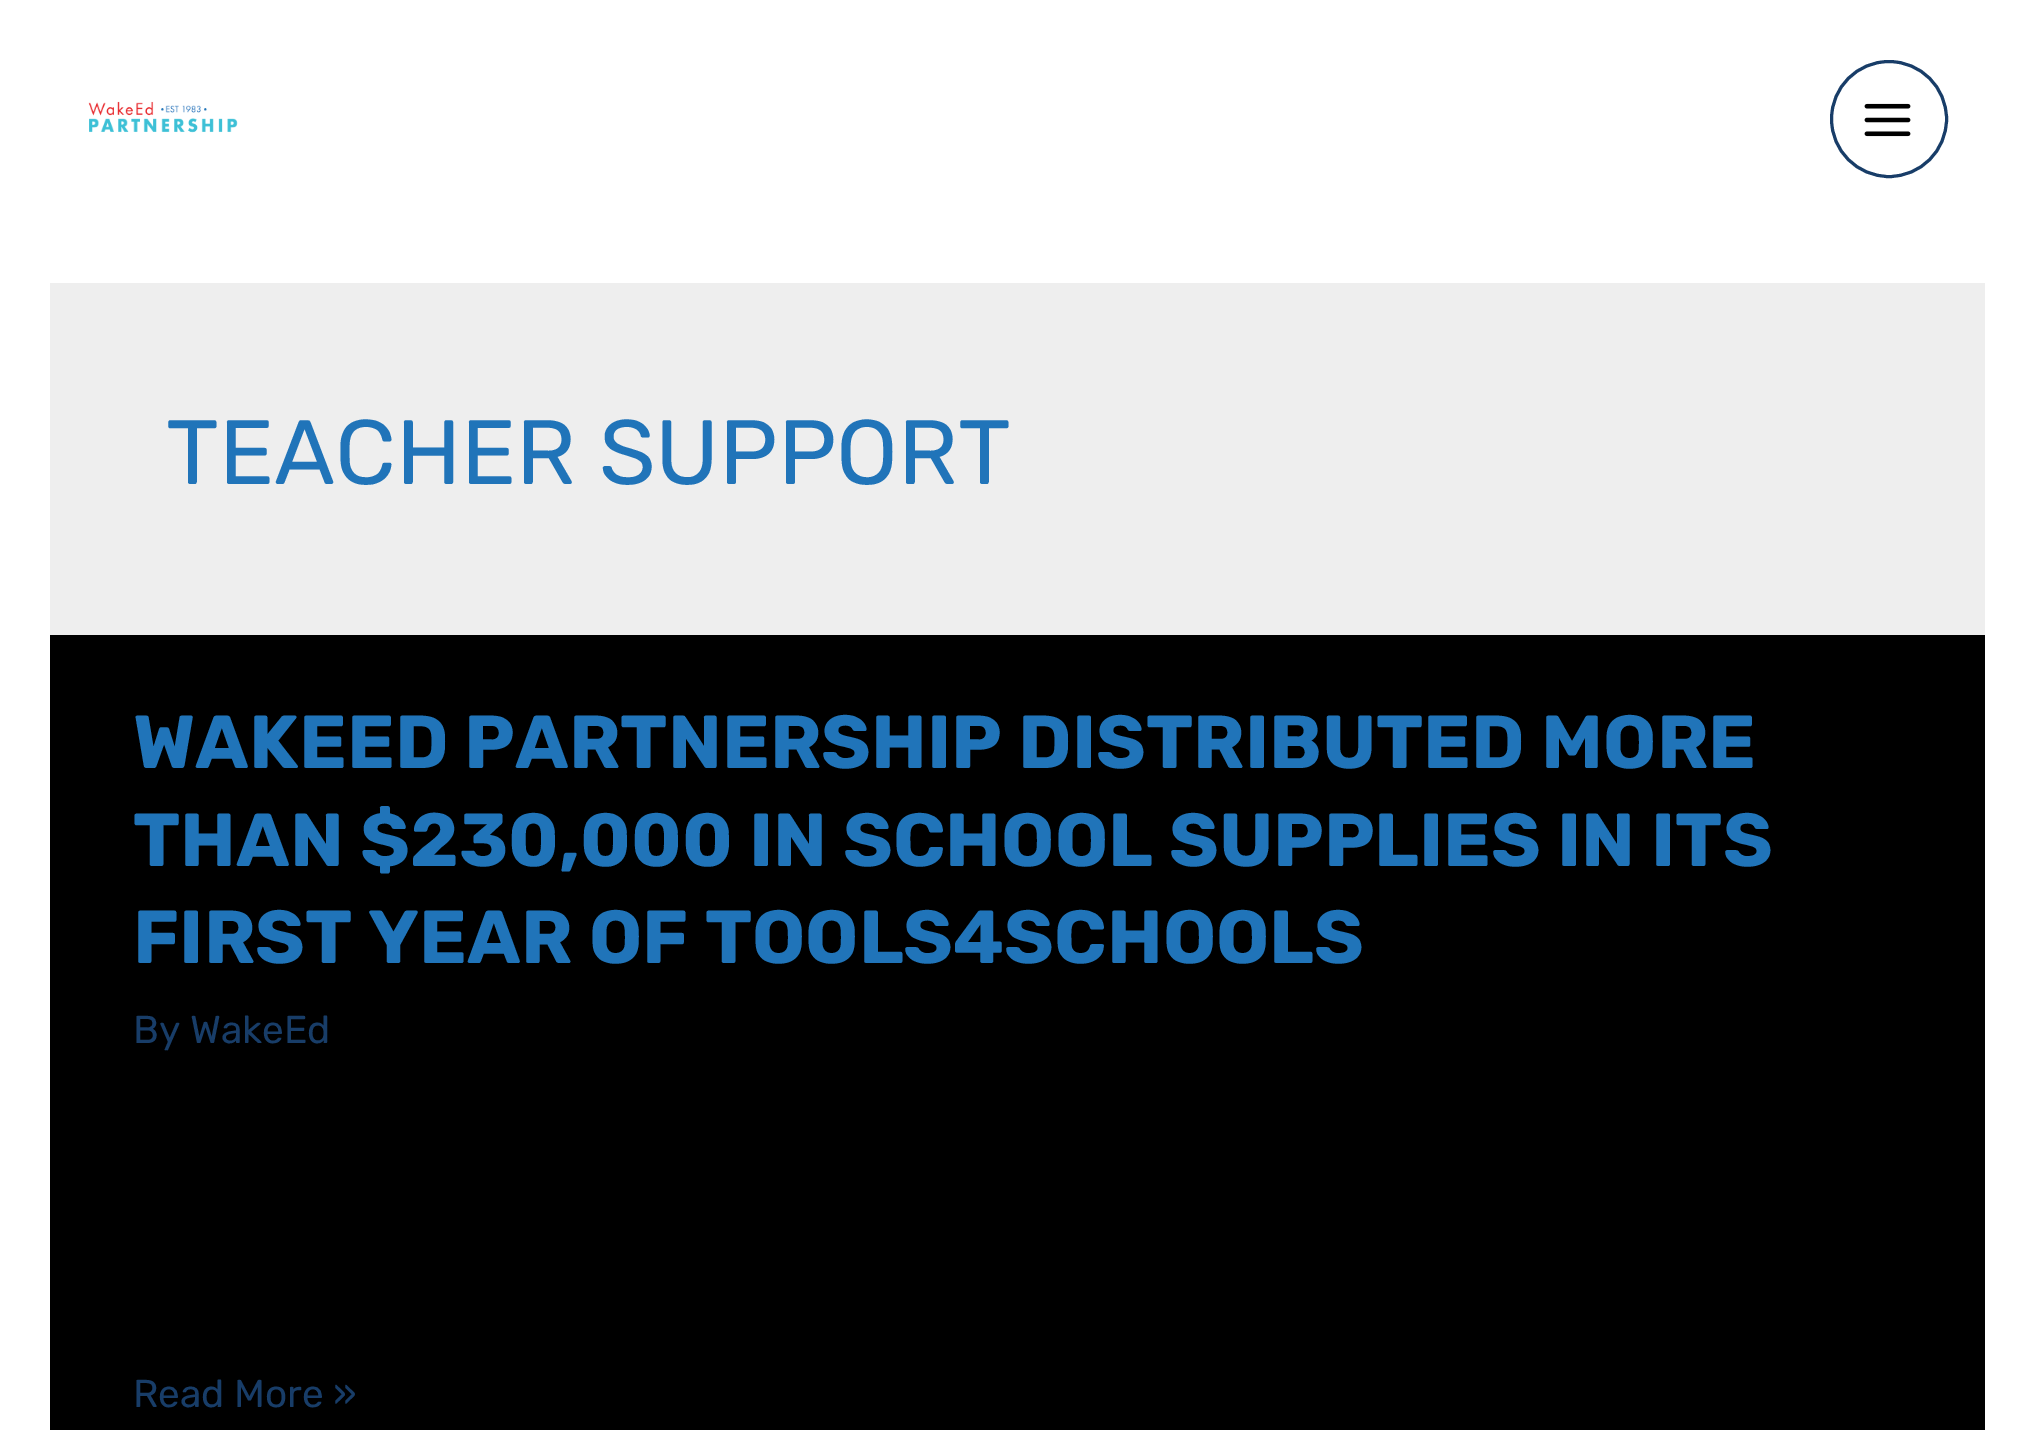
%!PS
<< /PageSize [2035 1430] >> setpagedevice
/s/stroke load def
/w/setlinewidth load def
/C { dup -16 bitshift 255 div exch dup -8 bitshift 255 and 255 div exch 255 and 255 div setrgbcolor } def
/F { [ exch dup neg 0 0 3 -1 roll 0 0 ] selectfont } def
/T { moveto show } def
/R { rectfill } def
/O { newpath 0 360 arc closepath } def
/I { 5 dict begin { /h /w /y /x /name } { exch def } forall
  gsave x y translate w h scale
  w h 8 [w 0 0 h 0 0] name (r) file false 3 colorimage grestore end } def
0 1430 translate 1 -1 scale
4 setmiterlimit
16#FFFFFF C
0 0 2035 1430 R
(1.rgb) 88 101 150 32 I
16#183D68 C
3 w
1889 119 57.5 O s
(2.rgb) 1864 103 47 34 I
16#EEEEEE C
50 283 1935 352 R
/Rubik-Regular 91.25 F
16#2074B9 C
(TEACHER SUPPORT) 166 484 T
16#000000 C
50 635 1935 795 R
/Rubik-Bold 75 F
16#2074B9 C
(WAKEED PARTNERSHIP DISTRIBUTED MORE) 133 768 T
(THAN $230,000 IN SCHOOL SUPPLIES IN ITS) 133 866 T
(FIRST YEAR OF TOOLS4SCHOOLS) 133 963 T
/Rubik-Regular 38.75 F
16#183D68 C
(By WakeEd) 133 1043 T
(Read More ») 133 1407 T
showpage
